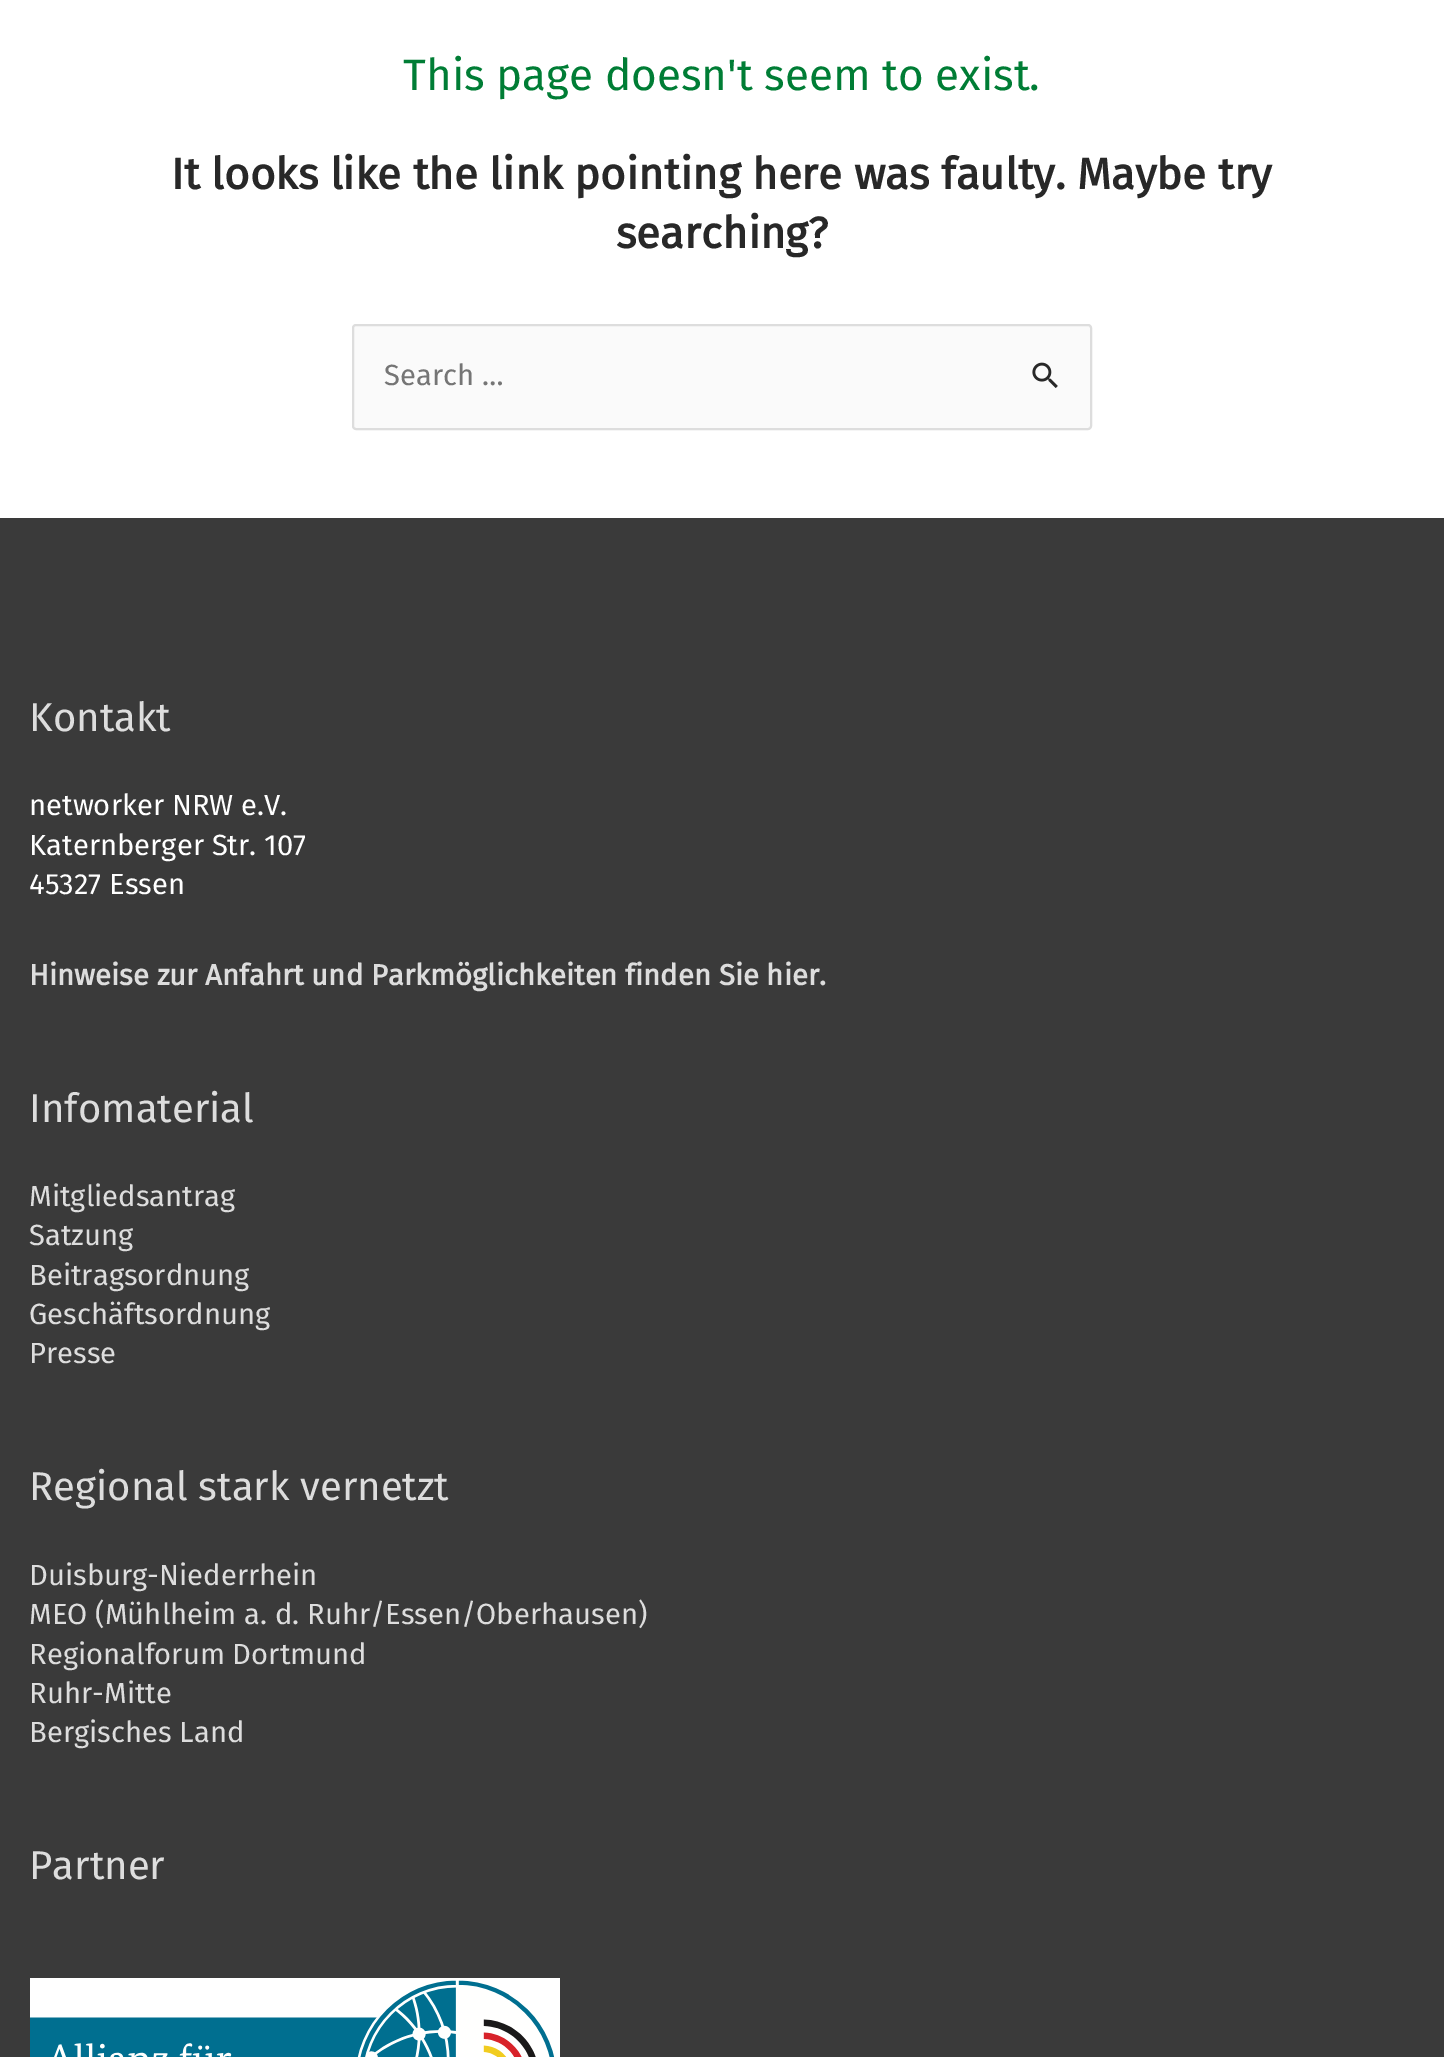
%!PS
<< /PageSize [1444 2057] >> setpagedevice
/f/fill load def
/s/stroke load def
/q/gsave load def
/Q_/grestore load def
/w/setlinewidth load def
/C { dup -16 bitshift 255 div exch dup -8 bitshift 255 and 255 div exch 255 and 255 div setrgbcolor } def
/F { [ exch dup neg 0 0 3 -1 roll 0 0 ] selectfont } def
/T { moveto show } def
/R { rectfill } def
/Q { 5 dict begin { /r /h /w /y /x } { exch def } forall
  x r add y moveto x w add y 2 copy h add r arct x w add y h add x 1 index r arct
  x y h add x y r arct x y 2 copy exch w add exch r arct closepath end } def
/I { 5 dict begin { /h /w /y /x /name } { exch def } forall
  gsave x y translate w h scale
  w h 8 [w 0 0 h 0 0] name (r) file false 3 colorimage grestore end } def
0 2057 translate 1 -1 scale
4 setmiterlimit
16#FFFFFF C
0 0 1444 2057 R
/FiraSans-Regular 44 F
16#007D35 C
(This page doesn't seem to exist.) 403 90 T
/FiraSans-Bold 43.75 F
16#282828 C
(It looks like the link pointing here was faulty. Maybe try) 171 189 T
(searching?) 616 248 T
16#FAFAFA C
353 325 738 104 3 Q q f Q_
16#DDDDDD C
2 w
s
/FiraSans-Regular 29.2 F
16#757575 C
(Search …) 384 385 T
(1.rgb) 1032 362 26 26 I
16#3A3A3A C
0 518 1444 1539 R
/FiraSans-Regular 40.1 F
16#DDDDDD C
(Kontakt) 29 731 T
/FiraSans-Regular 29.2 F
16#FFFFFF C
(networker NRW e.V.) 29 815 T
(Katernberger Str. 107) 29 855 T
(45327 Essen) 29 894 T
/FiraSans-Bold 29.2 F
16#DDDDDD C
(Hinweise zur Anfahrt und Parkmöglichkeiten finden Sie hier.) 29 985 T
/FiraSans-Regular 40.1 F
(Infomaterial) 29 1122 T
/FiraSans-Regular 29.2 F
(Mitgliedsantrag) 29 1206 T
(Satzung) 29 1245 T
(Beitragsordnung) 29 1285 T
(Geschäftsordnung) 29 1324 T
(Presse) 29 1363 T
/FiraSans-Regular 40.1 F
(Regional stark vernetzt) 29 1500 T
/FiraSans-Regular 29.2 F
(Duisburg-Niederrhein) 29 1585 T
(MEO \(Mühlheim a. d. Ruhr/Essen/Oberhausen\)) 29 1624 T
(Regionalforum Dortmund) 29 1664 T
(Ruhr-Mitte) 29 1703 T
(Bergisches Land) 29 1742 T
/FiraSans-Regular 40.1 F
(Partner) 29 1879 T
(2.rgb) 30 1978 530 79 I
showpage
